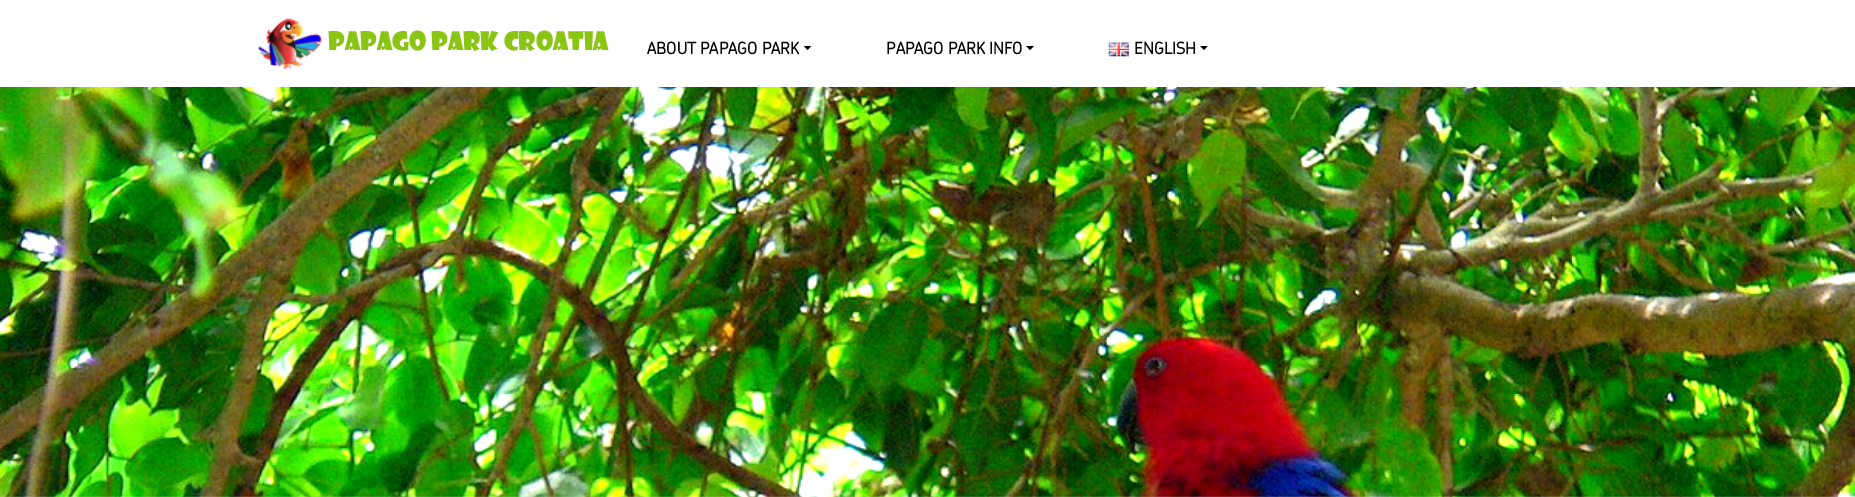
%!PS
<< /PageSize [1855 497] >> setpagedevice
/m/moveto load def
/l/rlineto load def
/z/closepath load def
/f/fill load def
/C { dup -16 bitshift 255 div exch dup -8 bitshift 255 and 255 div exch 255 and 255 div setrgbcolor } def
/F { [ exch dup neg 0 0 3 -1 roll 0 0 ] selectfont } def
/T { moveto show } def
/R { rectfill } def
/I { 5 dict begin { /h /w /y /x /name } { exch def } forall
  gsave x y translate w h scale
  w h 8 [w 0 0 h 0 0] name (r) file false 3 colorimage grestore end } def
0 497 translate 1 -1 scale
4 setmiterlimit
16#FFFFFF C
0 0 1855 497 R
(1.rgb) 258 18 64 51 I
/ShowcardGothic-Regular 25 F
16#89C512 C
(PAPAGO PARK CROATIA) 328 50 T
/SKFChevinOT-Bold 16.25 F
16#000000 C
(ABOUT PAPAGO PARK) 647 54 T
804 46 m 7 0 l -3.5 4 l z f
(PAPAGO PARK INFO) 886 54 T
1026 46 m 8 0 l -4 4 l z f
(2.rgb) 1108 42 21 15 I
(ENGLISH) 1134 54 T
1200 46 m 7.5 0 l -3.5 4 l z f
(3.rgb) 0 87 1855 410 I
showpage
